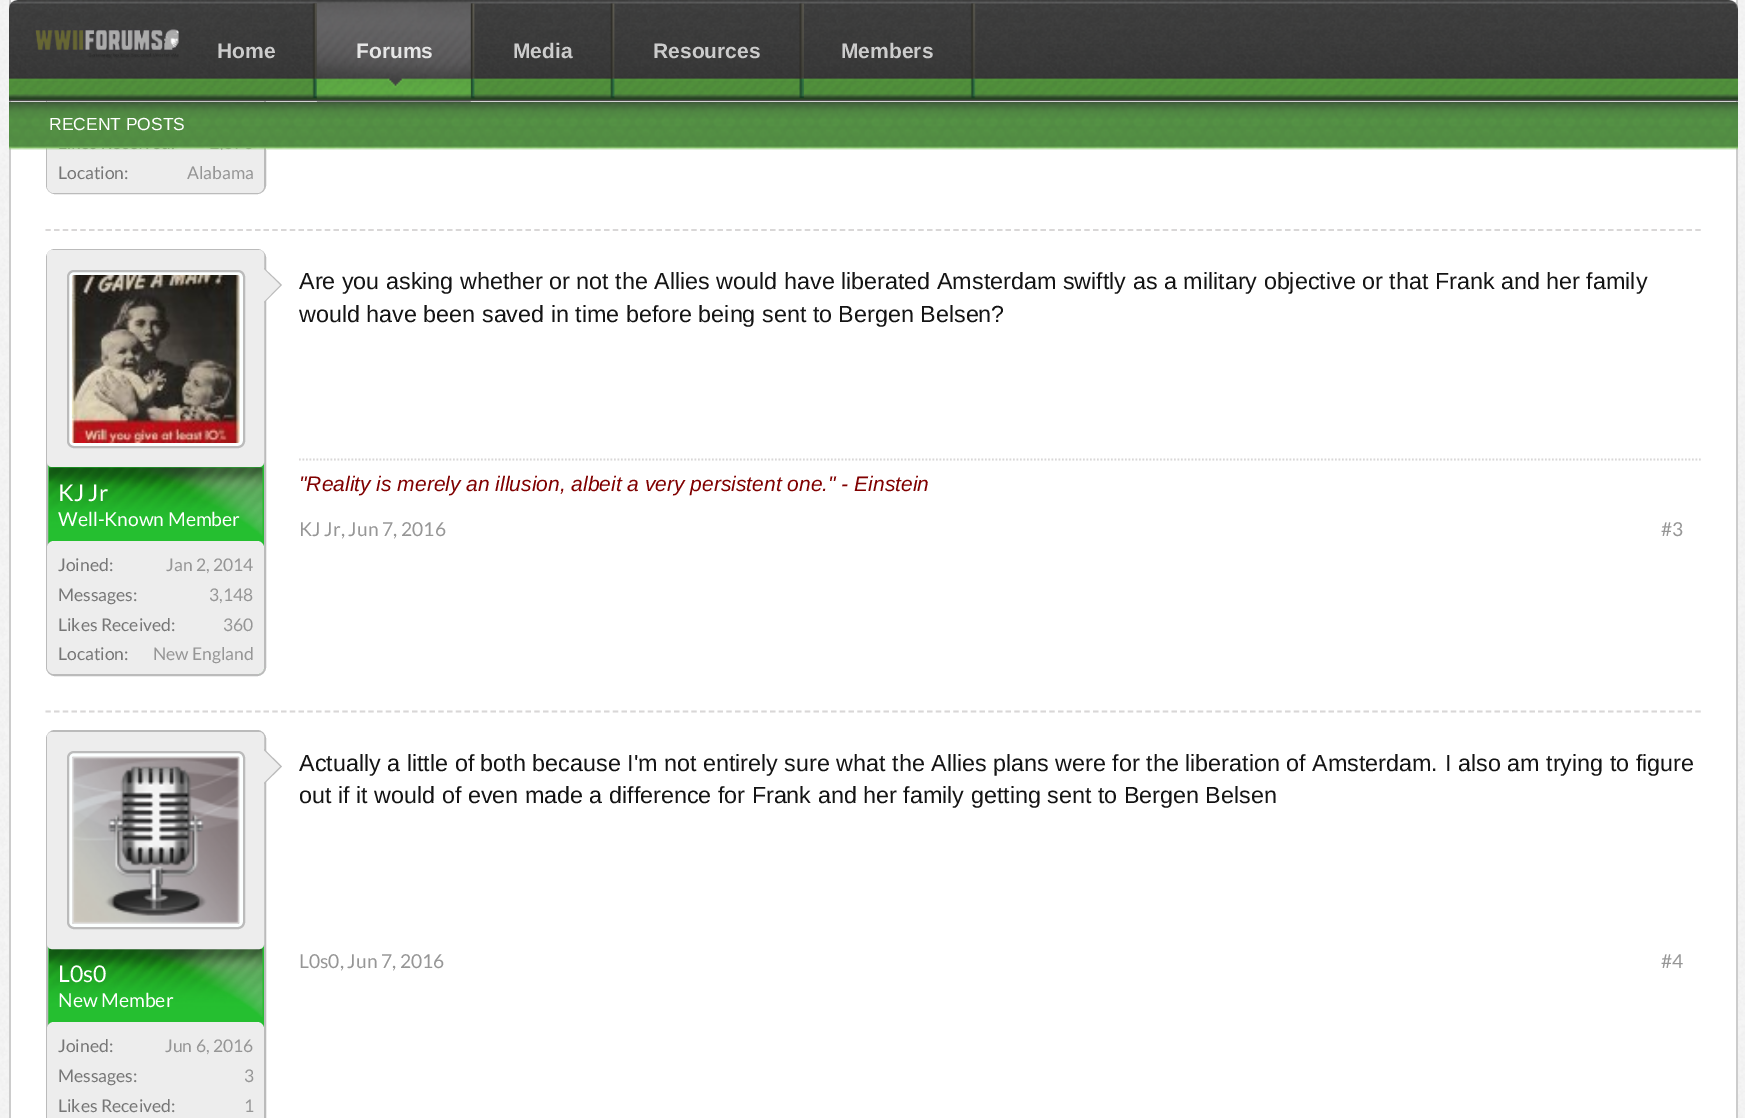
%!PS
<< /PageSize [1745 1118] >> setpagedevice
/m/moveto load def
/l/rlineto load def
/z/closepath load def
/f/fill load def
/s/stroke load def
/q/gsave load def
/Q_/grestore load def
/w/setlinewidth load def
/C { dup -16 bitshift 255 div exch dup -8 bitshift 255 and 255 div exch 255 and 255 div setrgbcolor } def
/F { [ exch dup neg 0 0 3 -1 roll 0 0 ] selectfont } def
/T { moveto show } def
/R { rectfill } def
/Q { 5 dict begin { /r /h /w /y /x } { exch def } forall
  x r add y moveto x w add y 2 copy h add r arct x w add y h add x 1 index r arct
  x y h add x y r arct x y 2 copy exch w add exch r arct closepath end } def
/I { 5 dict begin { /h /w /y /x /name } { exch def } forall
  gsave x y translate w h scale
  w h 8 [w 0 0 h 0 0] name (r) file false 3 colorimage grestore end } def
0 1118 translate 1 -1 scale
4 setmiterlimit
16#FFFFFF C
0 0 1745 1118 R
(1.rgb) 0 0 1745 1118 I
11 0 1725 1118 R
16#CCCCCC C
1736 0 2 1118 R
9 0 2 1118 R
16#BBBBBB C
2 w
47 -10 218 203 8 Q s
16#EDEDED C
47 60 217 133 7 Q f
(2.rgb) 9 0 1729 102 I
(3.rgb) 35 29 144 29 I
(4.rgb) 610 3 5 96 I
/LiberationSans-Bold 21 F
16#CCCCCC C
(Media) 513 58 T
(5.rgb) 970 3 6 96 I
(Members) 841 58 T
(6.rgb) 470 3 5 96 I
(9.rgb) 312 3 5 95 I
(7.rgb) 316 0 155 102 I
16#E6E6E6 C
(Forums) 356 58 T
(8.rgb) 9 102 1729 48 I
/LiberationSans-Regular 17.5 F
16#FFFFFF C
(RECENT POSTS) 49 130 T
/LiberationSans-Bold 21 F
16#CCCCCC C
(Home) 217 58 T
(10.rgb) 799 3 5 95 I
(Resources) 653 58 T
/Lato-Regular 17.5 F
16#777777 C
(Location:) 58 179 T
16#969696 C
(Alabama) 187 179 T
16#D9D7D7 C
1.8 w
[5.25 3.48] 0 setdash
45.5 230 m 1655.5 0 l s
/LiberationSans-Regular 23.33 F
16#141414 C
(Are you asking whether or not the Allies would have liberated Amsterdam swiftly as a military objective or that Frank and her family) 299 289 T
(would have been saved in time before being sent to Bergen Belsen?) 299 322 T
16#D9D7D7 C
[1.75 1.75] 0 setdash
299 459.5 m 1402 0 l s
/LiberationSans-Italic 21 F
16#800000 C
("Reality is merely an illusion, albeit a very persistent one." - Einstein) 299 491 T
/Lato-Regular 19.25 F
16#969696 C
(KJ Jr, Jun 7, 2016) 299 536 T
(#3) 1661 536 T
16#25BF30 C
47 250 218 425 8 Q q f Q_
16#BBBBBB C
2 w
[] 0 setdash
s
16#EDEDED C
48 251 215 215 4 Q q f Q_
s
16#FCFFFF C
68 271 176 176 6 Q q f Q_
16#BBBBBB C
s
(11.rgb) 71 275 169 168 I
264 303 m 0 -35 l 18 17 l z f
16#EDEDED C
262.5 303 m 0 -35 l 17.5 17 l z f
(12.rgb) 49 467 214 69 I
/Lato-Regular 23 F
16#FFFFFF C
(KJ Jr) 58 501 T
/Lato-Regular 19.25 F
(Well-Known Member) 58 526 T
16#EDEDED C
47 541 217 133 7 Q f
/Lato-Regular 17.5 F
16#777777 C
(Joined:) 58 571 T
16#969696 C
(Jan 2, 2014) 166 571 T
16#777777 C
(Messages:) 58 601 T
16#969696 C
(3,148) 209 601 T
16#777777 C
(Likes Received:) 58 631 T
16#969696 C
(360) 223 631 T
16#777777 C
(Location:) 58 660 T
16#969696 C
(New England) 153 660 T
16#D9D7D7 C
1.8 w
[5.25 3.48] 0 setdash
45.5 711.5 m 1655.5 0 l s
/LiberationSans-Regular 23.33 F
16#141414 C
(Actually a little of both because I'm not entirely sure what the Allies plans were for the liberation of Amsterdam.) 299 771 T
(I also am trying to figure) 1445 771 T
(out if it would of even made a difference for Frank and her family getting sent to Bergen Belsen) 299 803 T
/Lato-Regular 19.25 F
16#969696 C
(L0s0, Jun 7, 2016) 299 968 T
(#4) 1661 968 T
16#25BF30 C
47 731 218 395 8 Q q f Q_
16#BBBBBB C
2 w
[] 0 setdash
s
(14.rgb) 49 948 214 69 I
16#EDEDED C
48 733 215 215 4 Q q f Q_
s
16#FCFFFF C
68 752 176 176 6 Q q f Q_
16#BBBBBB C
s
(13.rgb) 72 756 168 168 I
264 784 m 0 -35 l 18 17.5 l z f
16#EDEDED C
262.5 784 m 0 -35 l 17.5 17.5 l z f
/Lato-Regular 23 F
16#FFFFFF C
(L0s0) 58 982 T
/Lato-Regular 19.25 F
(New Member) 58 1007 T
16#EDEDED C
47 1022 217 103 7 Q f
/Lato-Regular 17.5 F
16#777777 C
(Joined:) 58 1052 T
16#969696 C
(Jun 6, 2016) 165 1052 T
16#777777 C
(Messages:) 58 1082 T
16#969696 C
(3) 244 1082 T
16#777777 C
(Likes Received:) 58 1112 T
16#969696 C
(1) 244 1112 T
showpage
